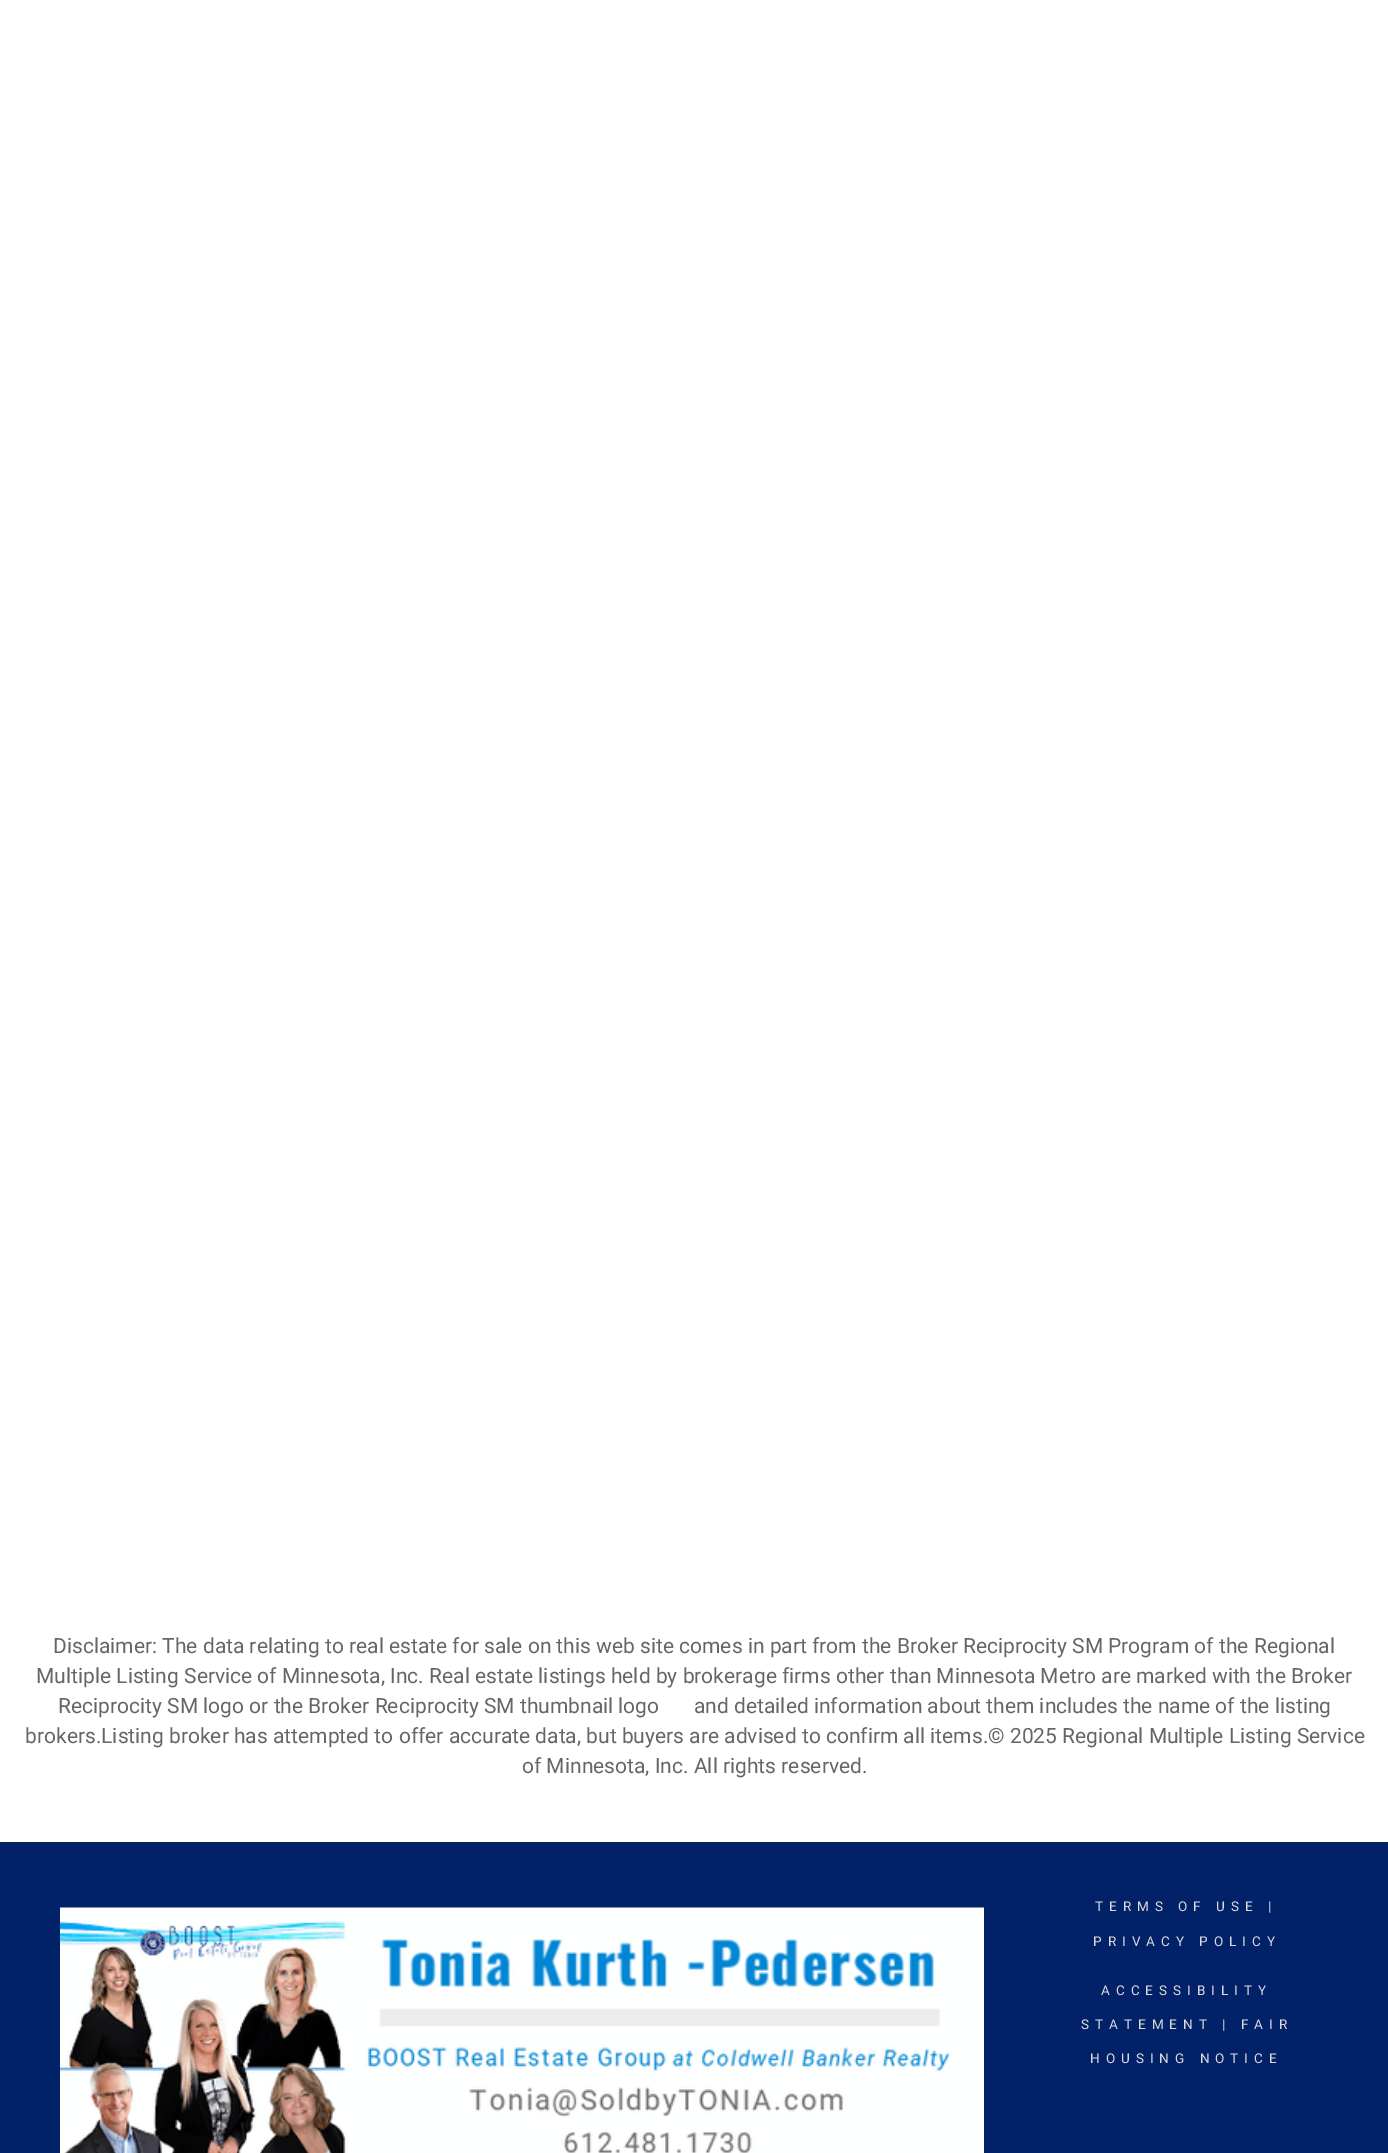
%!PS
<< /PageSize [1388 2153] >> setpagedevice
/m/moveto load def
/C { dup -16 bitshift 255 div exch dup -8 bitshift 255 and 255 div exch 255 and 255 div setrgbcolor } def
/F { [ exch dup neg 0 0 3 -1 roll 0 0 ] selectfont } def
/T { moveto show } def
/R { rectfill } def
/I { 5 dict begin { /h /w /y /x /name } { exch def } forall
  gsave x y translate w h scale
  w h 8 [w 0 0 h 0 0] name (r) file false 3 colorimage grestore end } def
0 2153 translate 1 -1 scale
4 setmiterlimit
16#FFFFFF C
0 0 1388 2153 R
/Roboto-Regular 21 F
16#666666 C
(Disclaimer: The data relating to real estate for sale on this web site comes in part from the Broker Reciprocity SM Program of the Regional) 53 1653 T
(Multiple Listing Service of Minnesota, Inc. Real estate listings held by brokerage firms other than Minnesota Metro are marked with the Broker) 36 1683 T
(Reciprocity SM logo or the Broker Reciprocity SM thumbnail logo) 58 1713 T
(and detailed information about them includes the name of the listing) 694 1713 T
(brokers.Listing broker has attempted to offer accurate data, but buyers are advised to confirm all items.© 2025 Regional Multiple Listing Service) 25 1743 T
(of Minnesota, Inc. All rights reserved.) 522 1773 T
16#012169 C
0 1842 1388 311 R
(1.rgb) 60 1907 924 246 I
/Roboto-Regular 13.5 F
16#DBDBDB C
1095 1911 m 6 0 (TERMS OF USE |) ashow
1093 1946 m 6 0 (PRIVACY POLICY) ashow
1101 1995 m 6 0 (ACCESSIBILITY) ashow
1081 2029 m 6 0 (STATEMENT | FAIR) ashow
1090 2063 m 6 0 (HOUSING NOTICE) ashow
showpage
